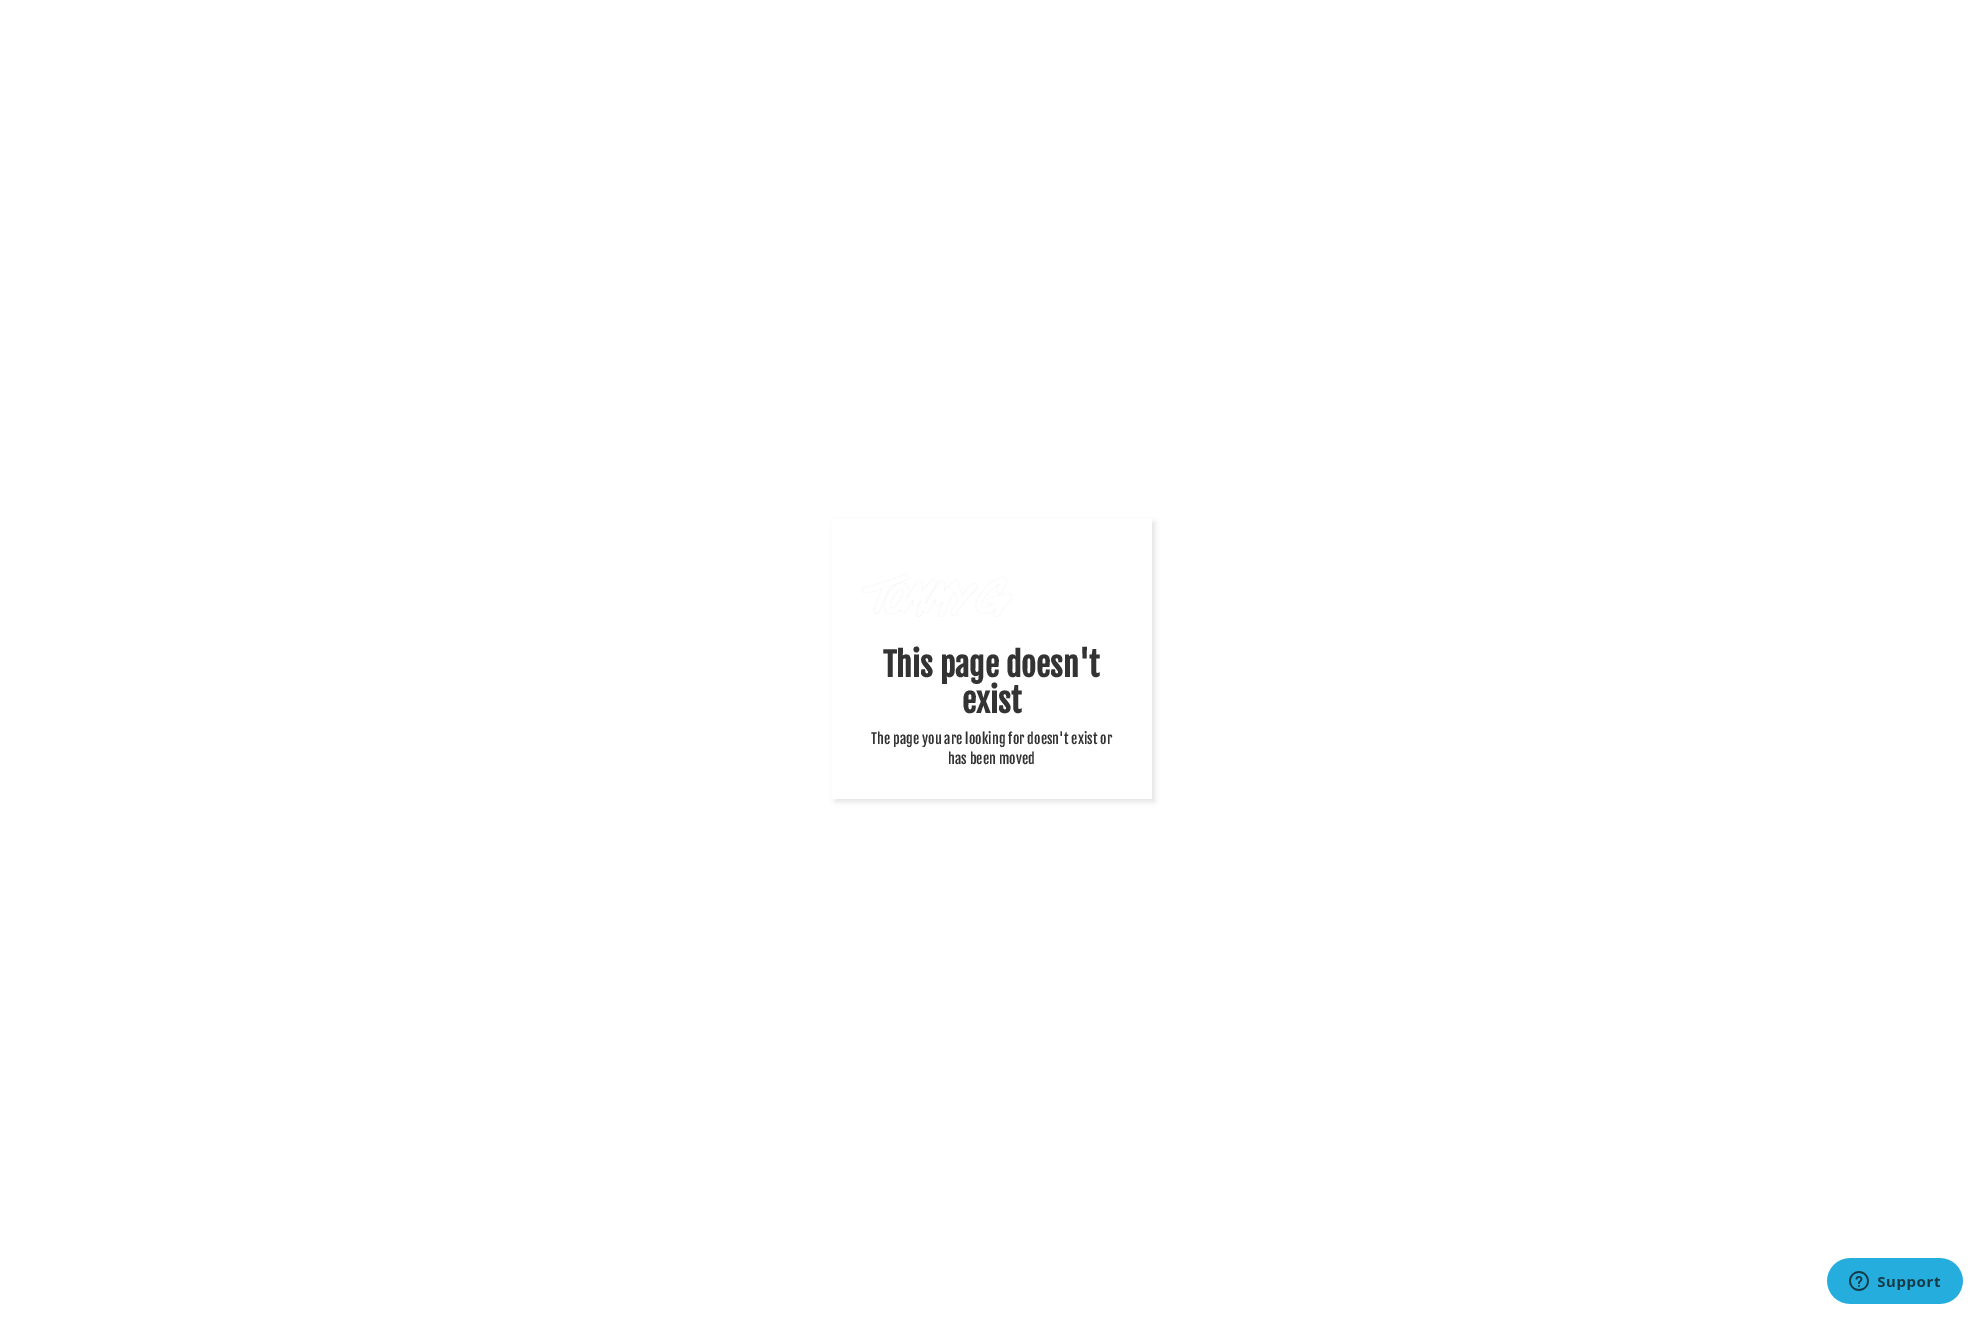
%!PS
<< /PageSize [1983 1318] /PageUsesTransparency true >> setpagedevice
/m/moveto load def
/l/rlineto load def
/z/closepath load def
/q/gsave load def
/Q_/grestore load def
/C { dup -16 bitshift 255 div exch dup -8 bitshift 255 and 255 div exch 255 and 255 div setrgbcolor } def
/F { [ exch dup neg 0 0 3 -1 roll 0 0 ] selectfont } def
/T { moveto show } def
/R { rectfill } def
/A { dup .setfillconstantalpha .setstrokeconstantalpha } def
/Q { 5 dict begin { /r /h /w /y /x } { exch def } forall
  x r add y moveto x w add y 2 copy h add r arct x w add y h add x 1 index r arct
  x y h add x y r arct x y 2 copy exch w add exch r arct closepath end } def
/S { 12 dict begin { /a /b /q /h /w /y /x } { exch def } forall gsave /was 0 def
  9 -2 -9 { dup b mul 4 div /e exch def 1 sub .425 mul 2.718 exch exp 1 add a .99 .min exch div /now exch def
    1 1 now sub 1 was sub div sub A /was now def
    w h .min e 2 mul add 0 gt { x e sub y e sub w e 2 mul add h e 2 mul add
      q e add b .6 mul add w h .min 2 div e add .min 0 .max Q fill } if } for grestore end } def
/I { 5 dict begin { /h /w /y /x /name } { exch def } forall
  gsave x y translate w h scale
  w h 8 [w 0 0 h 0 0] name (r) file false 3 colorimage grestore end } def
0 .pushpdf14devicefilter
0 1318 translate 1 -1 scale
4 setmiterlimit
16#FFFFFF C
0 0 1983 1318 R
q
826 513 m 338 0 l 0 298 l -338 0 l z 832 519 m 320 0 l 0 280 l -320 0 l z eoclip newpath
16#000000 C
835 522 320 280 0 2.5 .1 S
Q_
(1.rgb) 862 574 150 43 I
/FjallaOne-Bold 32 F
16#333333 C
(This page doesn't) 883 677 T
(exist) 962 713 T
/FjallaOne-Regular 14 F
(The page you are looking for doesn't exist or) 871 744 T
(has been moved) 948 764 T
(2.rgb) 1827 1258 136 46 I
.poppdf14devicefilter showpage
